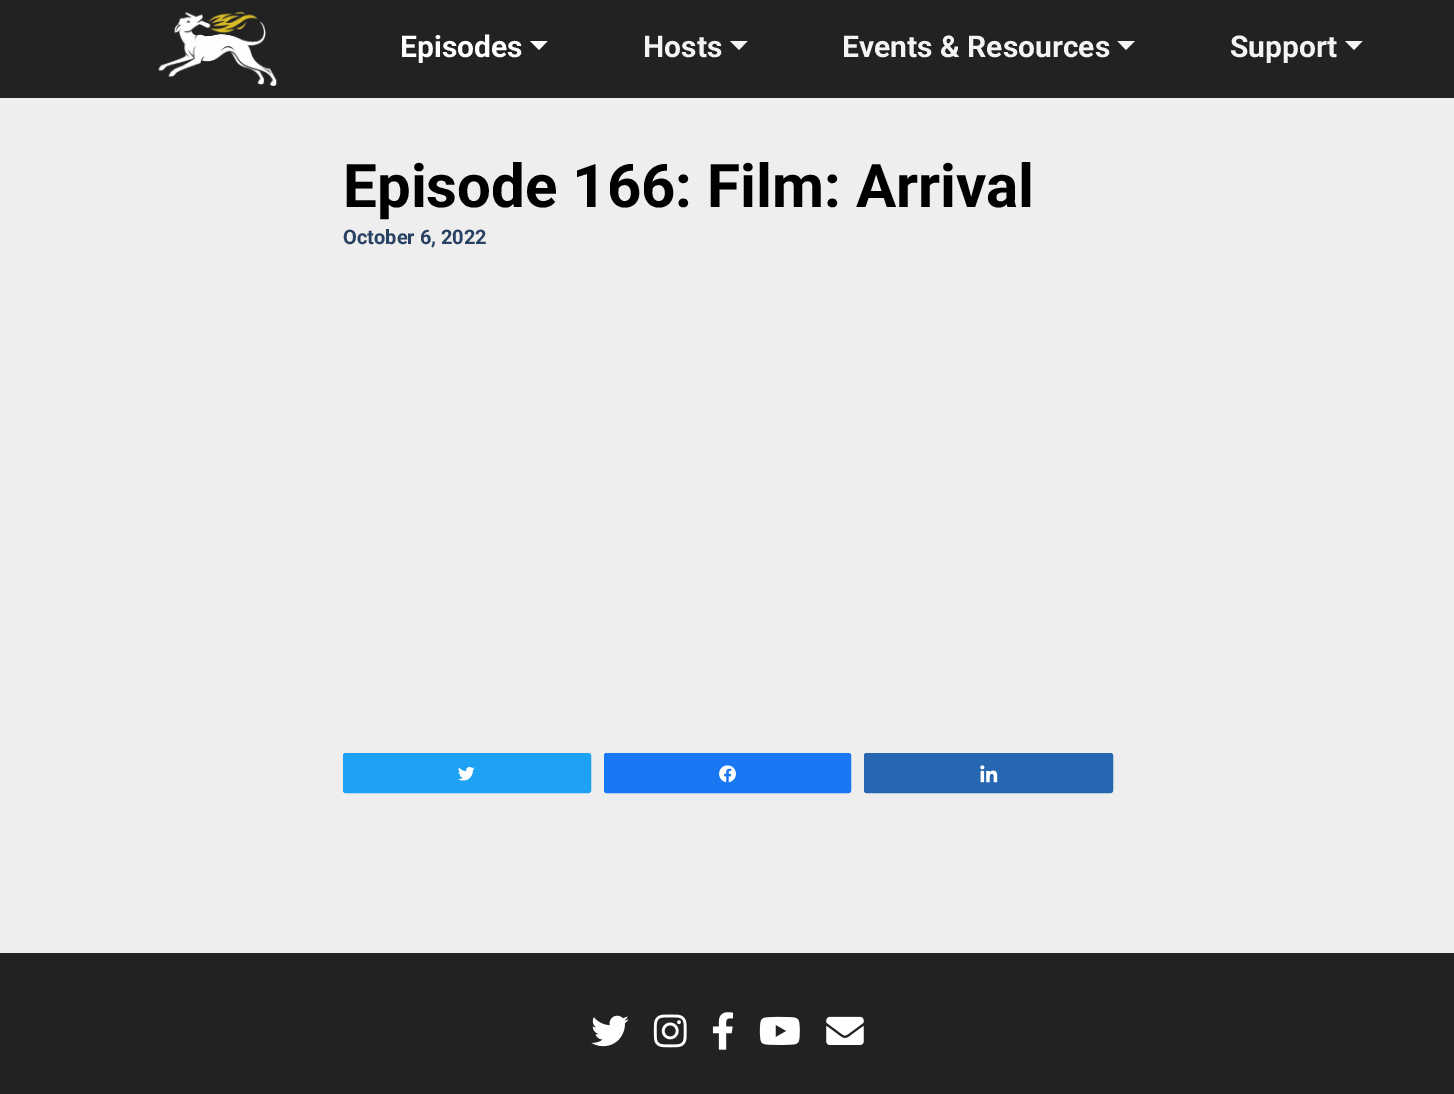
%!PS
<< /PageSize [1454 1094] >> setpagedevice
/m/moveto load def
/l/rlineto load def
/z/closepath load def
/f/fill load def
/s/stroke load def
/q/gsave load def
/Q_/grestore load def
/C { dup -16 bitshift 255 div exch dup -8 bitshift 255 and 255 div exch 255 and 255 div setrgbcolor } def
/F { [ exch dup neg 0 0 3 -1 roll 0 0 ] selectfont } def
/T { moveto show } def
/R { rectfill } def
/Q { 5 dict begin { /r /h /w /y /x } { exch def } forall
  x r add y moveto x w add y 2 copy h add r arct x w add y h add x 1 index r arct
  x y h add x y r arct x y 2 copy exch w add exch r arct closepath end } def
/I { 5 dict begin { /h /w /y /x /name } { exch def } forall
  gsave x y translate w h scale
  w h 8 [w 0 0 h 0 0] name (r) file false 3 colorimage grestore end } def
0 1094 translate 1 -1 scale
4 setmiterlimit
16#EEEEEE C
0 0 1454 1094 R
16#222222 C
0 0 1454 98 R
(1.rgb) 158 11 119 75 I
/Roboto-Bold 30 F
16#FFFFFF C
(Episodes) 400 57 T
530 41 m 17.5 0 l -8.5 9 l z f
16#F4F4F4 C
(Hosts) 643 57 T
730 41 m 17.5 0 l -8.5 9 l z f
(Events & Resources) 842 57 T
1117.5 41 m 17.5 0 l -9 9 l z f
(Support) 1230 57 T
1345 41 m 17.5 0 l -8.5 9 l z f
/Roboto-Bold 60 F
16#000000 C
(Episode 166: Film: Arrival) 343 207 T
/Roboto-Bold 20 F
16#284163 C
(October 6, 2022) 343 244 T
16#1DA1F2 C
343.5 753.5 247 39 2 Q q f Q_
s
(2.rgb) 458 766 17 15 I
16#1877F2 C
604.5 753.5 246 39 2 Q q f Q_
s
(3.rgb) 719 765 17 18 I
16#2767B1 C
864.5 753.5 248 39 2 Q q f Q_
s
(4.rgb) 980 765 18 18 I
16#222222 C
0 953 1454 141 R
(5.rgb) 591 1015 38 32 I
(6.rgb) 653 1014 34 34 I
(7.rgb) 712 1012 21 38 I
(8.rgb) 759 1016 41 29 I
(9.rgb) 826 1016 38 29 I
showpage
